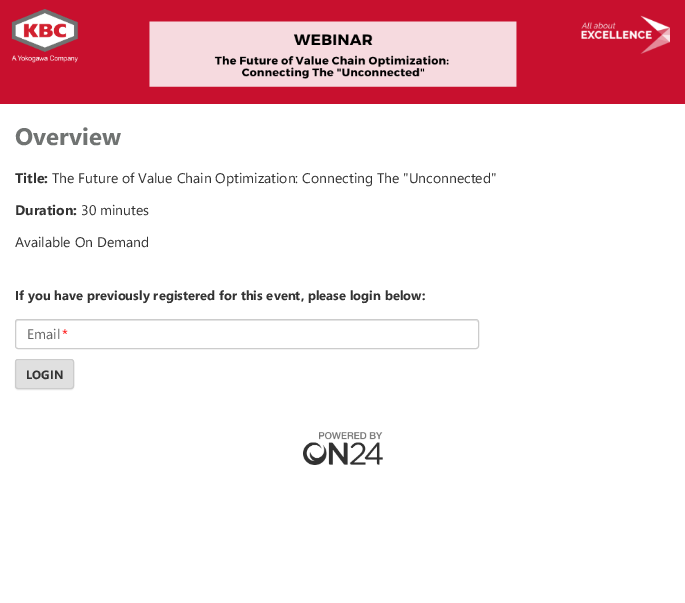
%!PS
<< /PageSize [685 603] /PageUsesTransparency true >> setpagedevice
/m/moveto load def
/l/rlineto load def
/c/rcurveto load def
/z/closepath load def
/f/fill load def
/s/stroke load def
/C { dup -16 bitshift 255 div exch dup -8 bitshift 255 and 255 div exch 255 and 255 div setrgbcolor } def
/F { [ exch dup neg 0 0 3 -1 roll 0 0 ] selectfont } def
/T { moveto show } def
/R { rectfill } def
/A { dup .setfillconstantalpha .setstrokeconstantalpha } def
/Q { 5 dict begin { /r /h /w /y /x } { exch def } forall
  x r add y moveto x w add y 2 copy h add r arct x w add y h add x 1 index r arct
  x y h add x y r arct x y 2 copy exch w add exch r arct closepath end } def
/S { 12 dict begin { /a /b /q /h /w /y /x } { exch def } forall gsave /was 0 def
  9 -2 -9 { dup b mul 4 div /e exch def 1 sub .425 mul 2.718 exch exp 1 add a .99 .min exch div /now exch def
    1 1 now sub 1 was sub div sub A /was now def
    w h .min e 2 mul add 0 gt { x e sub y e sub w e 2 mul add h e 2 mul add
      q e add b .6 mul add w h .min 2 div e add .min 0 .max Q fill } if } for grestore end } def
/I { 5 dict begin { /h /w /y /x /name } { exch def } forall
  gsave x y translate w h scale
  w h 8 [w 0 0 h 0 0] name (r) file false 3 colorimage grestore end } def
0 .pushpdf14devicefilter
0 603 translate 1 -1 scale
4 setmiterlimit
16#FFFFFF C
0 0 685 603 R
(1.rgb) 0 0 685 104 I
/SegoeUI-Bold 24 F
16#707372 C
(Overview) 15 145 T
/SegoeUI-Bold 14 F
16#333333 C
(Title:) 15 183 T
/SegoeUI-Regular 14 F
(The Future of Value Chain Optimization: Connecting The "Unconnected") 52 183 T
/SegoeUI-Bold 14 F
(Duration:) 15 215 T
/SegoeUI-Regular 14 F
(30 minutes) 81 215 T
(Available On Demand) 15 247 T
/SegoeUI-Bold 13 F
(If you have previously registered for this event, please login below:) 15 300 T
16#ECECEC C
18 321 m 458 0 l 1 0 2 1 2 2 c 0 -2 l -2 -1 l -458 0 l -2 0 -2 2 -2 3 c 0 -1 1 -2 2 -2 c z f
16#CCCCCC C
15.5 319.5 463 29 2.5 Q s
/SegoeUI-Regular 14 F
16#666666 C
(Email) 27 339 T
16#FF0000 C
(*) 62 339 T
16#000000 C
15 360 59 30 3 .5 .07 S
16#E0E0E0 C
15 359 59 30 3 Q f
16#E5E5E5 C
18 361 m 53 0 l 1 0 2 1 2 2 c 0 -5 -7 -3 -11 -3 c -35 0 l -4 0 -11 -2 -11 3 c 0 -1 1 -2 2 -2 c z f
16#CCCCCC C
15.5 359.5 58 29 2.5 Q s
/SegoeUI-Bold 12 F
16#333333 C
(LOGIN) 26 379 T
(2.rgb) 303 432 80 33 I
.poppdf14devicefilter showpage
